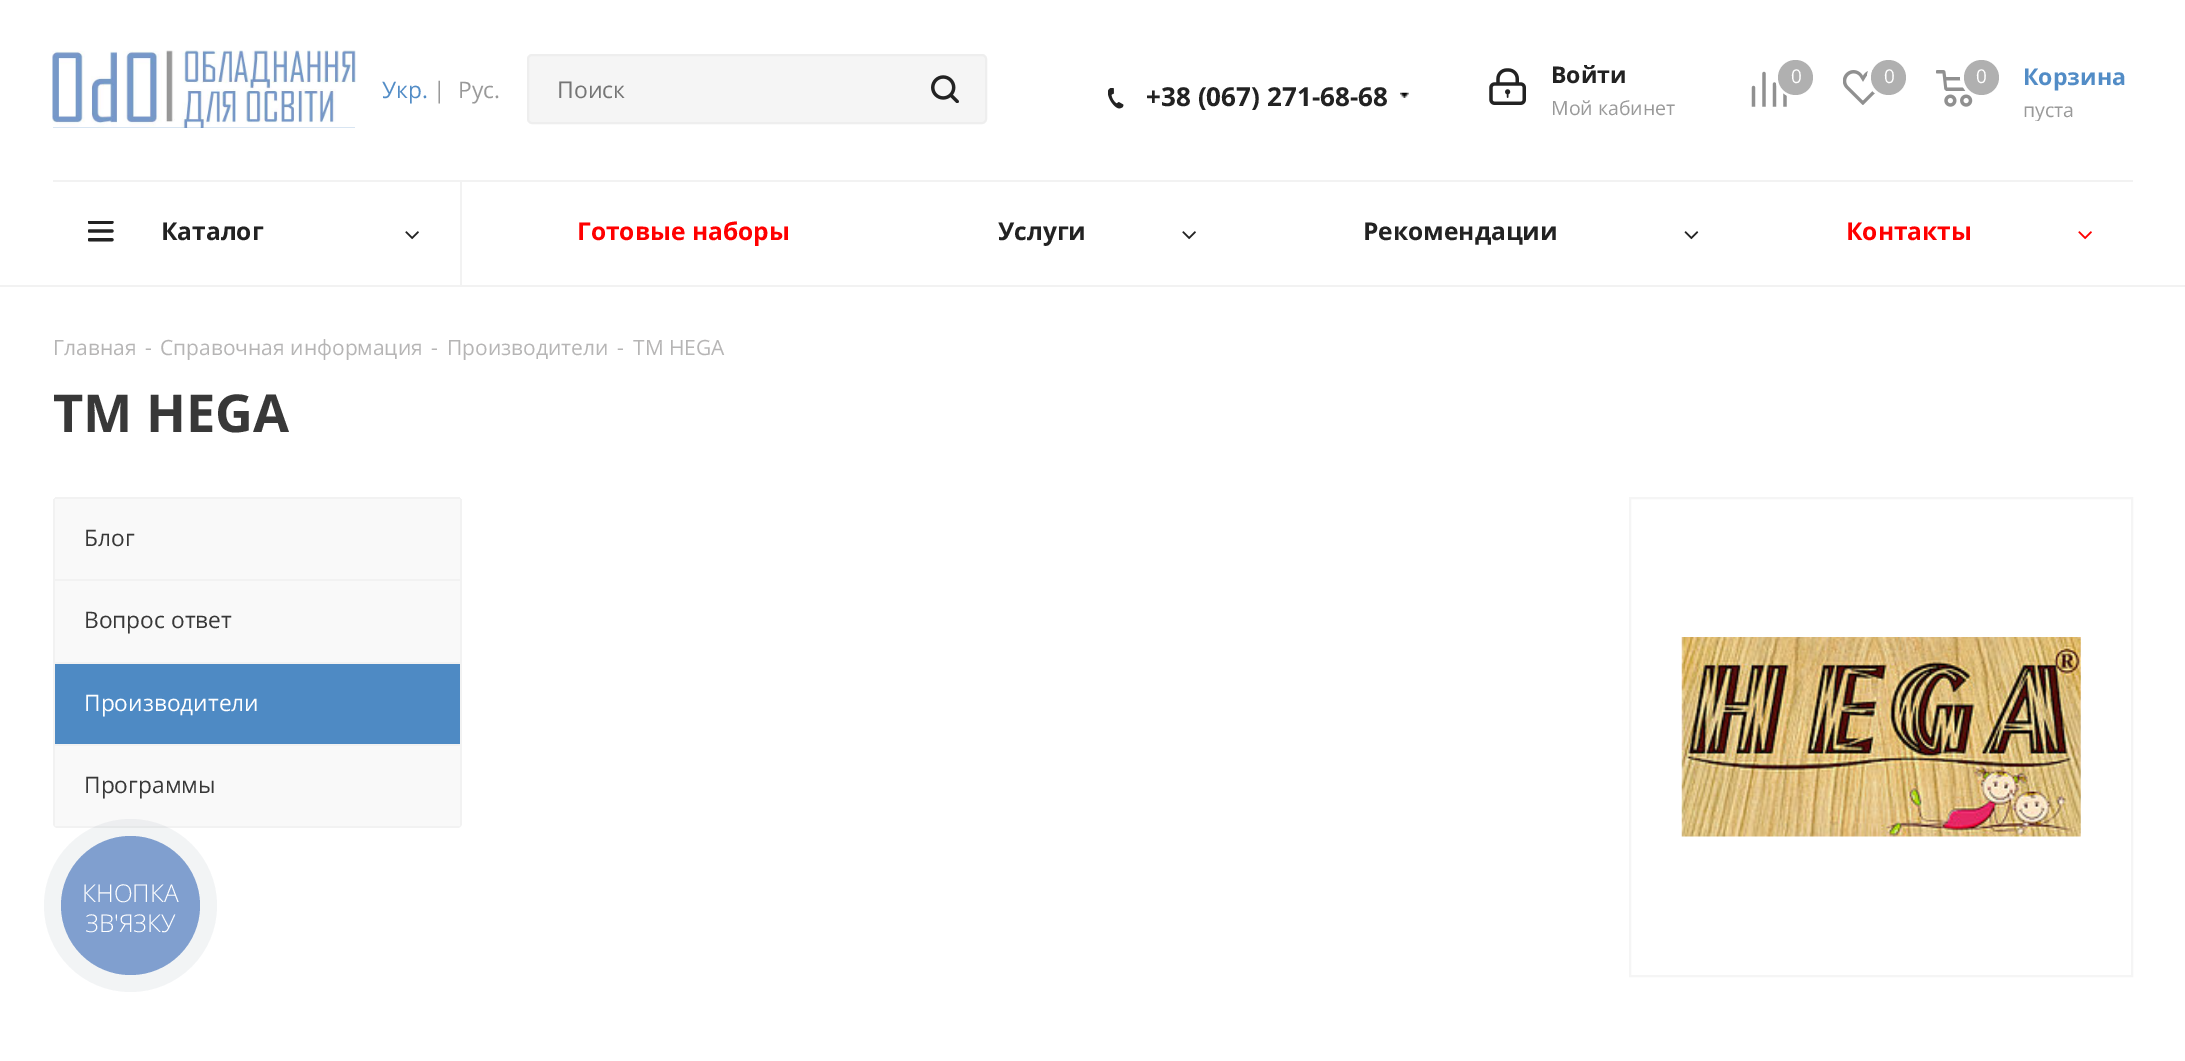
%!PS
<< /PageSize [2185 1061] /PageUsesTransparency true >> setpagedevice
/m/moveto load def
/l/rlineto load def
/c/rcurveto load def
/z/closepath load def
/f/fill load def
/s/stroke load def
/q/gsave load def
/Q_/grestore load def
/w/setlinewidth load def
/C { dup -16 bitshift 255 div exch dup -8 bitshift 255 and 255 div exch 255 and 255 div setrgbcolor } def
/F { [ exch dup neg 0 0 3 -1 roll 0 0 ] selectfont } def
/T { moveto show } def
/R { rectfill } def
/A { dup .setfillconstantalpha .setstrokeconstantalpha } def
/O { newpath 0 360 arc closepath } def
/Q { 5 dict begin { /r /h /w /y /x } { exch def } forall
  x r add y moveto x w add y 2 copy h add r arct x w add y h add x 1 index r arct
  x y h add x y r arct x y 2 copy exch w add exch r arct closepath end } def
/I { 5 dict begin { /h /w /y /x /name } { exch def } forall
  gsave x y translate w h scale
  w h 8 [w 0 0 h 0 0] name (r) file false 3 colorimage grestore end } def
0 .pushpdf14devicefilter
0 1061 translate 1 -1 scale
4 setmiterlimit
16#FFFFFF C
0 0 2185 1061 R
(1.rgb) 52 50 304 78 I
/OpenSans-Regular 22.75 F
16#528CC6 C
(Укр.) 382 98 T
16#999999 C
(|) 433 98 T
(Рус.) 458 98 T
16#F5F5F5 C
528 55 458 68 4 Q q f Q_
16#EEEEEE C
2 w
s
/OpenSans-Regular 23 F
16#757575 C
(Поиск) 557 98 T
(2.rgb) 931 75 28 28 I
(3.rgb) 1108 88 16 21 I
/OpenSans-Bold 26.1 F
16#222222 C
(+38 \(067\) 271-68-68) 1146 106 T
(4.rgb) 1400 92 9 6 I
(5.rgb) 1489 68 37 37 I
/OpenSans-Bold 23 F
(Войти) 1551 83 T
/OpenSans-Regular 19.5 F
16#999999 C
(Мой кабинет) 1551 115 T
(6.rgb) 1751 71 36 36 I
16#FFFFFF C
4 w
1796 77 19 O s
16#B0B0B0 C
1795.5 77.5 17.5 O f
/OpenSans-Regular 19 F
16#FFFFFF C
(0) 1791 83 T
(7.rgb) 1843 70 35 35 I
1888 77 19 O s
16#B0B0B0 C
1888.5 77.5 17.5 O f
16#FFFFFF C
(0) 1884 83 T
(8.rgb) 1936 70 37 37 I
1981 77 19 O s
16#B0B0B0 C
1981.5 77.5 17.5 O f
16#FFFFFF C
(0) 1976 83 T
/OpenSans-Bold 23 F
16#528CC6 C
(Корзина) 2023 85 T
q
2023 98 102 23 rectclip
/OpenSans-Regular 19.5 F
16#999999 C
(пуста) 2023 117 T
Q_
16#F2F2F2 C
0 285 2185 2 R
53 180 2080 2 R
460 182 2 103 R
(9.rgb) 88 221 26 21 I
/OpenSans-Bold 24.5 F
16#222222 C
(Каталог) 161 240 T
(10.rgb) 405 231 14 9 I
16#FF0000 C
(Готовые наборы) 577 240 T
16#222222 C
(Услуги) 998 240 T
(10.rgb) 1182 231 14 9 I
(Рекомендации) 1363 240 T
(11.rgb) 1684 231 15 9 I
16#FF0000 C
(Контакты) 1846 240 T
(12.rgb) 2078 231 14 9 I
/OpenSans-Regular 21 F
16#B6B5B5 C
(Главная) 53 355 T
(-) 145 355 T
(Справочная информация) 160 355 T
(-) 431 355 T
(Производители) 447 355 T
(-) 617 355 T
(ТМ HEGA) 633 355 T
/OpenSans-Bold 52.25 F
16#383838 C
(ТМ HEGA) 53 432 T
16#F9F9F9 C
55 499 405 80 R
q
53 497 409 331 5 Q clip newpath
16#F2F2F2 C
53 497 409 2 R
460 497 2 82 R
53 497 2 82 R
Q_
/OpenSans-Regular 22.75 F
16#383838 C
(Блог) 84 546 T
16#F9F9F9 C
55 581 405 81 R
16#F2F2F2 C
53 579 409 2 R
460 579 2 83 R
53 579 2 83 R
16#383838 C
(Вопрос ответ) 84 628 T
16#4E8AC4 C
55 664 405 80 R
16#F2F2F2 C
53 662 409 2 R
460 662 2 82 R
53 662 2 82 R
16#FFFFFF C
(Производители) 84 711 T
16#F9F9F9 C
53 744 m 409 0 l 0 79 l 0 3 -2 5 -5 5 c -399 0 l -3 0 -5 -2 -5 -5 c z f
16#F2F2F2 C
53 744 m 0 79 l 0 3 2 5 5 5 c 399 0 l 3 0 5 -2 5 -5 c 0 -79 l z 55 746 m 0 80 l 405 0 l 0 -80 l z eofill
16#383838 C
(Программы) 84 793 T
16#F5F5F5 C
2 w
1630 498 502 478 rectstroke
(13.rgb) 1681 637 400 200 I
0.06 A
16#2A405D C
130.5 905.5 86.5 O f
1 A
16#809FCF C
130.5 905.5 69.5 O f
/OpenSans-Light 24.5 F
16#FFFFFF C
(КНОПКА) 82 902 T
(ЗВ'ЯЗКУ) 85 932 T
.poppdf14devicefilter showpage
